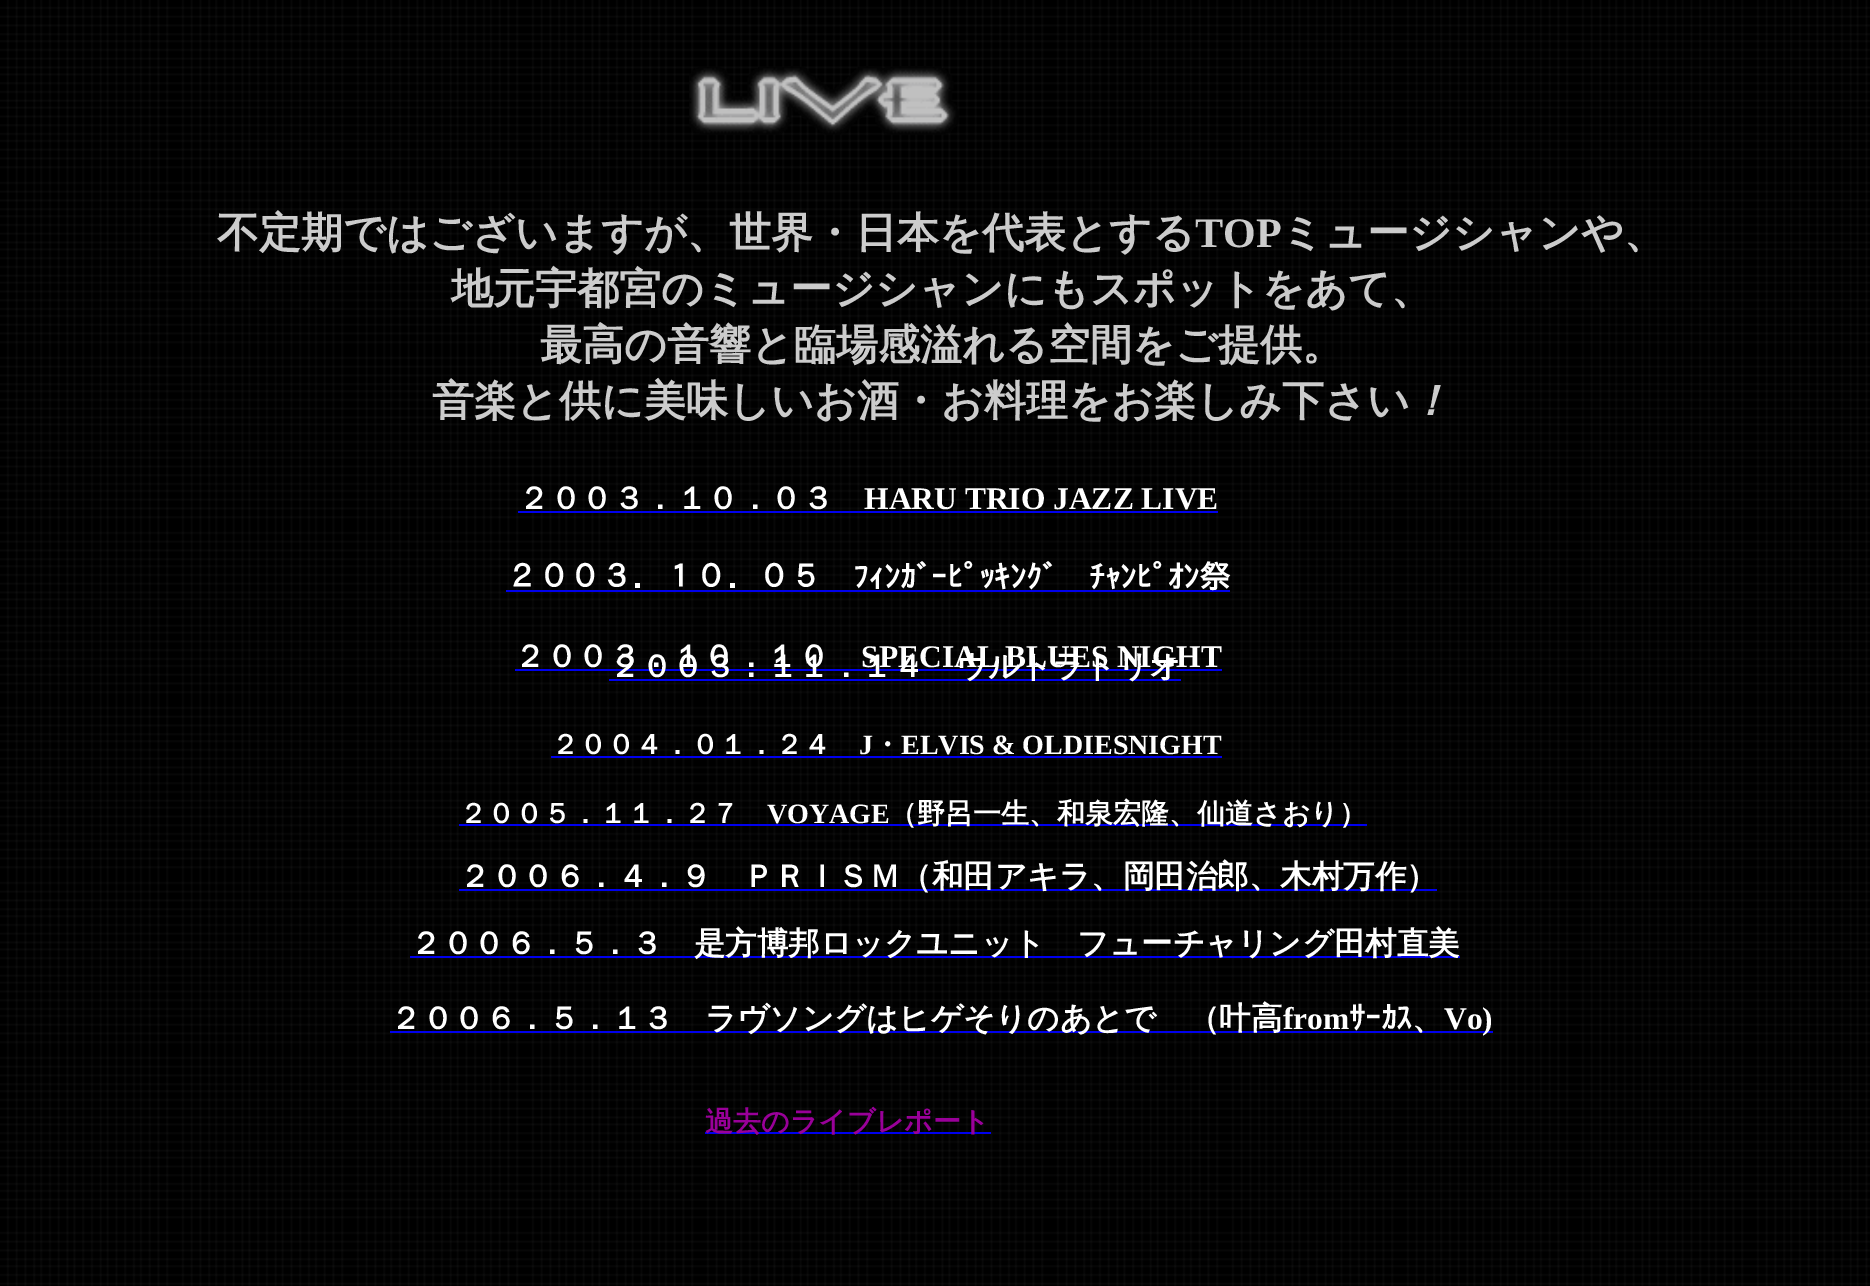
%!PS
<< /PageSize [1870 1286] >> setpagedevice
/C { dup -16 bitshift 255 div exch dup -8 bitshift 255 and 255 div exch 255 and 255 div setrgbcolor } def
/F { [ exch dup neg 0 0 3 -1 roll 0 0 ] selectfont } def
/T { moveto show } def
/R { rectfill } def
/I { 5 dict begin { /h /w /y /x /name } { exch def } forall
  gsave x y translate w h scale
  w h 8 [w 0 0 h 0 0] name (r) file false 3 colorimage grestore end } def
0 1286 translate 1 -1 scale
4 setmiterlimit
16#FFFFFF C
0 0 1870 1286 R
(1.rgb) 0 0 1870 1286 I
(2.rgb) 689 66 270 69 I
/WenQuanYiZenHei-Bold 42 F
16#CCCCCC C
(不定期ではございますが、世界・日本を代表とする) 217 247 T
/LiberationSerif-Bold 42 F
(TOP) 1195 247 T
/WenQuanYiZenHei-Bold 42 F
(ミュージシャンや、) 1281 247 T
(地元宇都宮のミュージシャンにもスポットをあて、) 451 303 T
(最高の音響と臨場感溢れる空間をご提供。) 540 359 T
(音楽と供に美味しいお酒・お料理をお楽しみ下さい) 432 415 T
/WenQuanYiZenHei-BoldItalic 42 F
(！) 1409 415 T
/WenQuanYiZenHei-Bold 31.5 F
16#FFFFFF C
(２００３．１０．０３) 518 509 T
/LiberationSerif-Bold 31.5 F
(HARU TRIO JAZZ LIVE) 864 509 T
16#0000EE C
518 511 700 2 R
506 590 724 2 R
/IPAGothic-Bold 31.5 F
16#FFFFFF C
(２００３．１０．０５　ﾌｨﾝｶﾞｰﾋﾟｯｷﾝｸﾞ　ﾁｬﾝﾋﾟｵﾝ祭) 506 588 T
/WenQuanYiZenHei-Bold 31.5 F
(２００３．１０．１０) 514 667 T
/LiberationSerif-Bold 31.5 F
(SPECIAL BLUES NIGHT) 861 667 T
16#0000EE C
515 669 707 2 R
609 679 572 2 R
/WenQuanYiZenHei-Bold 31.5 F
16#FFFFFF C
(２００３．１１．１４　ウルトラトリオ) 609 677 T
/WenQuanYiZenHei-Bold 28 F
(２００４．０１．２４) 551 754 T
/LiberationSerif-Bold 28 F
(J) 859 754 T
16#0000EE C
551 756 671 2 R
/WenQuanYiZenHei-Bold 28 F
16#FFFFFF C
(・) 873 754 T
/LiberationSerif-Bold 28 F
(ELVIS & OLDIESNIGHT) 901 754 T
/WenQuanYiZenHei-Bold 28 F
(２００５．１１．２７) 459 823 T
/LiberationSerif-Bold 28 F
(VOYAGE) 767 823 T
16#0000EE C
459 824 908 2 R
/WenQuanYiZenHei-Bold 28 F
16#FFFFFF C
(（野呂一生、和泉宏隆、仙道さおり）) 889 823 T
16#0000EE C
459 889 978 2 R
/WenQuanYiZenHei-Bold 31.5 F
16#FFFFFF C
(２００６．４．９　ＰＲＩＳＭ（和田アキラ、岡田治郎、木村万作）) 459 887 T
16#0000EE C
410 956 1050 2 R
16#FFFFFF C
(２００６．５．３　是方博邦ロックユニット　フューチャリング田村直美) 410 954 T
16#0000EE C
390 1031 1103 2 R
16#FFFFFF C
(２００６．５．１３　ラヴソングはヒゲそりのあとで　（叶高) 390 1029 T
/LiberationSerif-Bold 31.5 F
(from) 1283 1029 T
/IPAGothic-Bold 31.5 F
(ｻｰｶｽ) 1349 1029 T
/WenQuanYiZenHei-Bold 31.5 F
(、) 1412 1029 T
/LiberationSerif-Bold 31.5 F
(Vo\)) 1444 1029 T
16#0000EE C
705 1132 286 2 R
/WenQuanYiZenHei-Bold 28 F
16#990099 C
(過去のライブレポート) 705 1131 T
showpage
